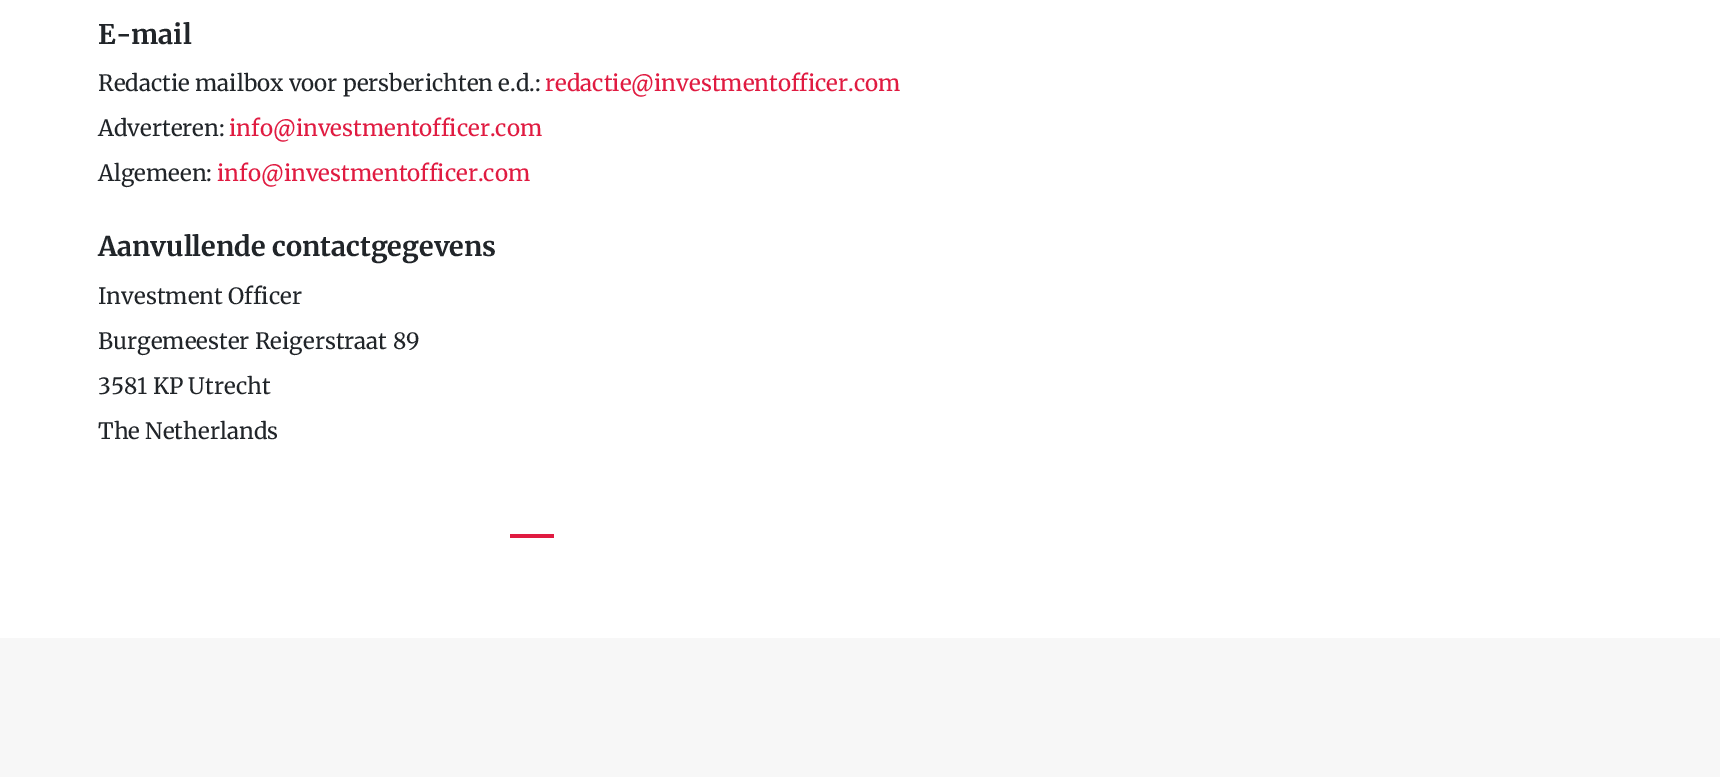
%!PS
<< /PageSize [1720 777] >> setpagedevice
/C { dup -16 bitshift 255 div exch dup -8 bitshift 255 and 255 div exch 255 and 255 div setrgbcolor } def
/F { [ exch dup neg 0 0 3 -1 roll 0 0 ] selectfont } def
/T { moveto show } def
/R { rectfill } def
0 777 translate 1 -1 scale
4 setmiterlimit
16#FFFFFF C
0 0 1720 777 R
/Merriweather-Bold 27 F
16#212529 C
(E-mail) 98 44 T
/Merriweather-Regular 22.4 F
(Redactie mailbox voor persberichten e.d.:) 98 91 T
16#E01B41 C
(redactie@investmentofficer.com) 545 91 T
16#212529 C
(Adverteren:) 98 136 T
16#E01B41 C
(info@investmentofficer.com) 229 136 T
16#212529 C
(Algemeen:) 98 181 T
16#E01B41 C
(info@investmentofficer.com) 217 181 T
/Merriweather-Bold 27 F
16#212529 C
(Aanvullende contactgegevens) 98 256 T
/Merriweather-Regular 22.4 F
(Investment Officer) 98 304 T
(Burgemeester Reigerstraat 89) 98 349 T
(3581 KP Utrecht) 98 394 T
(The Netherlands) 98 439 T
16#E01B41 C
510 534 44 4 R
16#F7F7F7 C
0 638 1720 139 R
showpage
